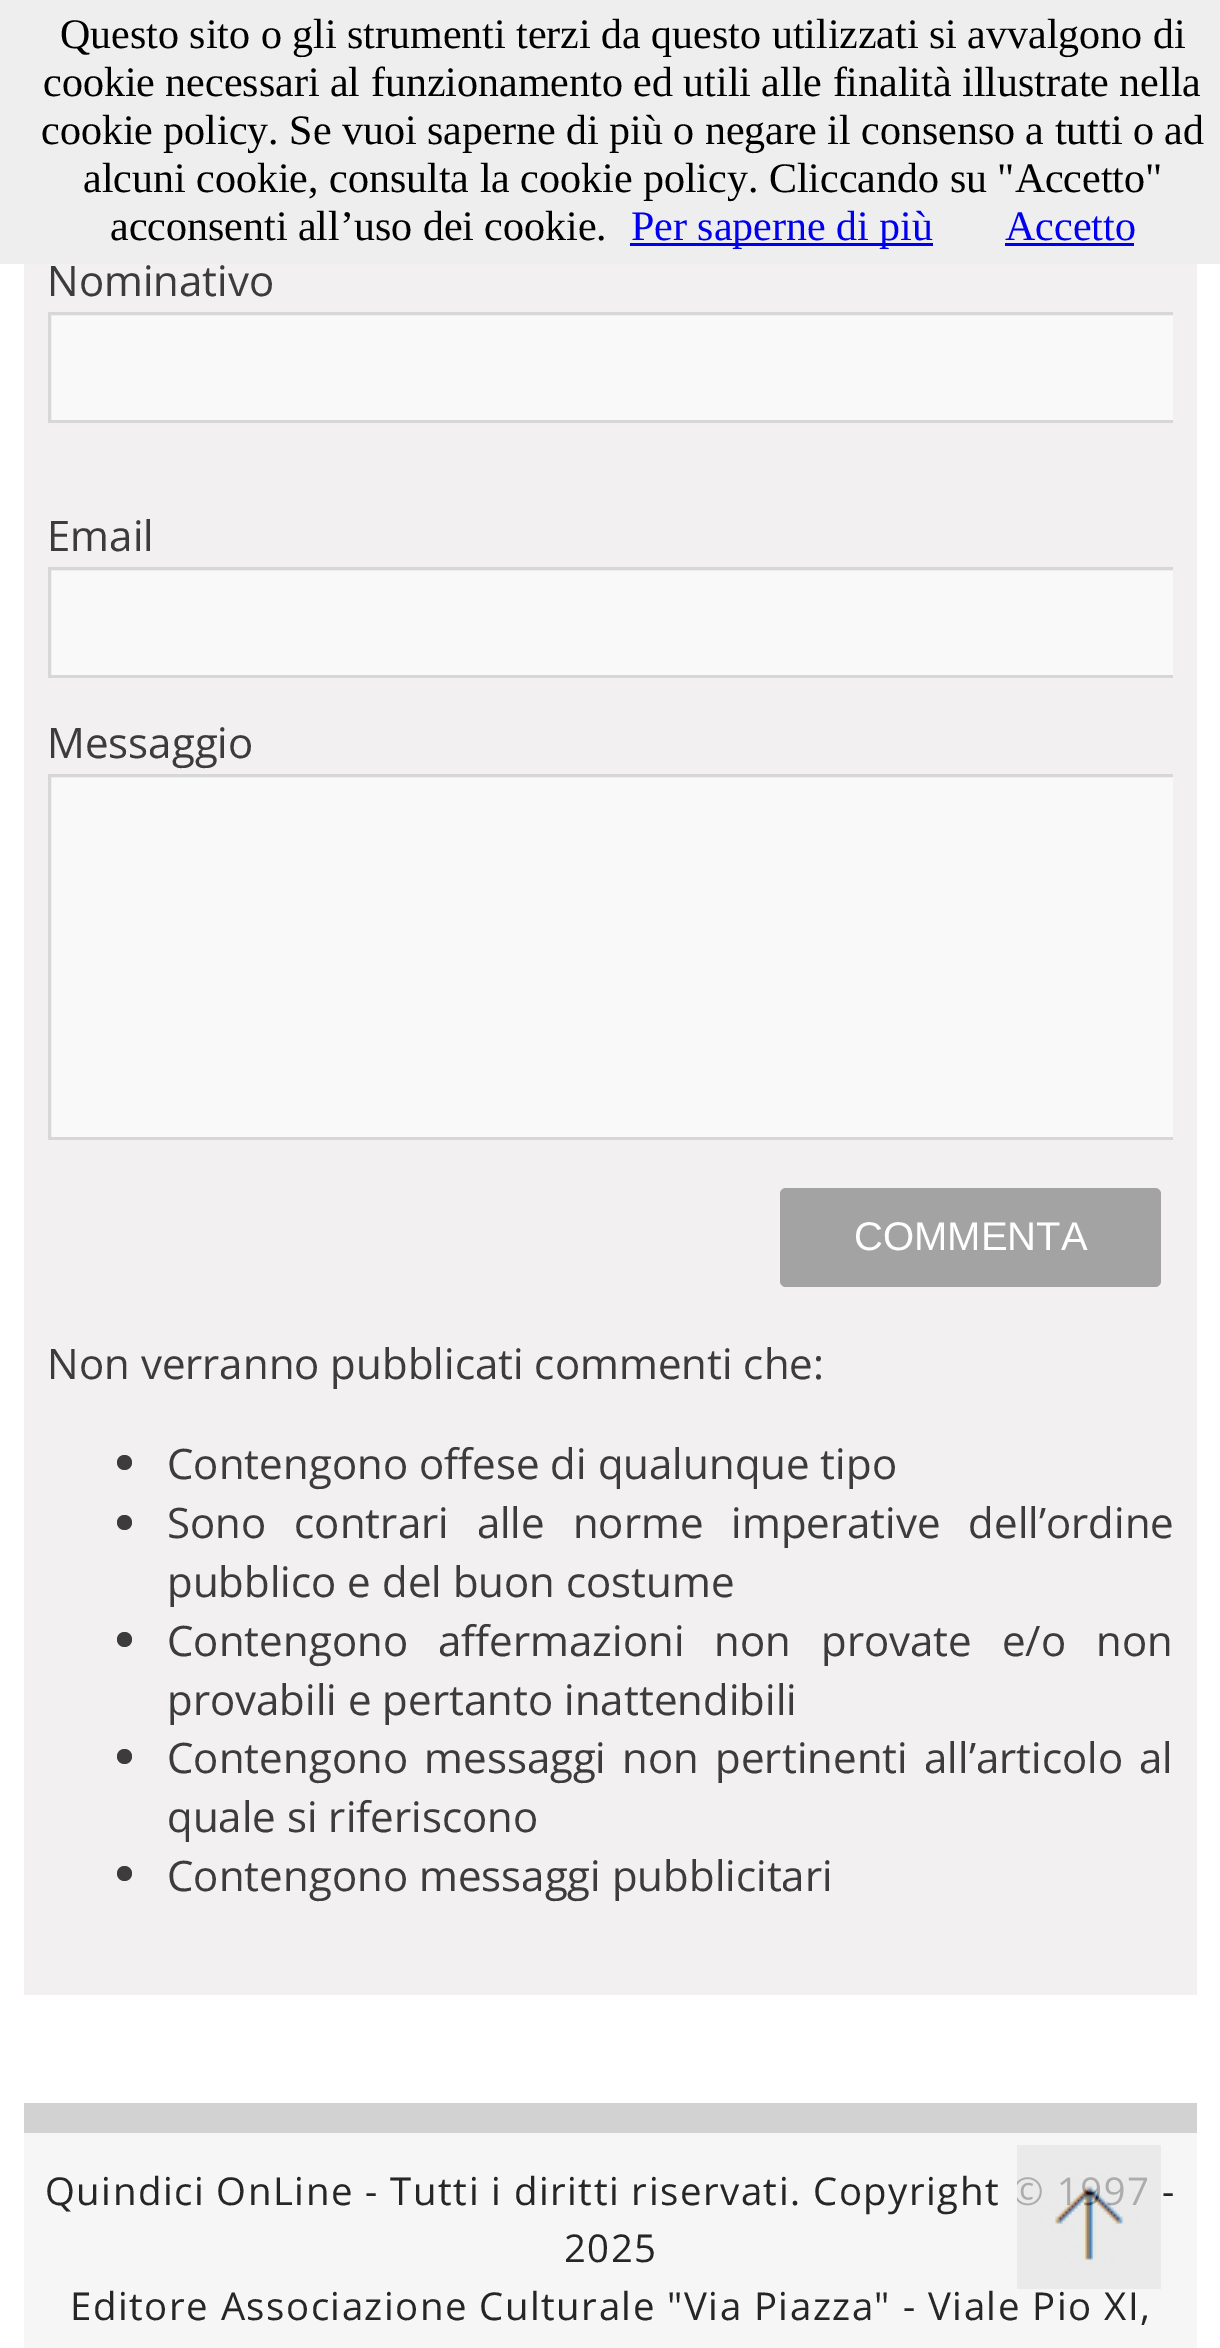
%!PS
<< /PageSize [1220 2348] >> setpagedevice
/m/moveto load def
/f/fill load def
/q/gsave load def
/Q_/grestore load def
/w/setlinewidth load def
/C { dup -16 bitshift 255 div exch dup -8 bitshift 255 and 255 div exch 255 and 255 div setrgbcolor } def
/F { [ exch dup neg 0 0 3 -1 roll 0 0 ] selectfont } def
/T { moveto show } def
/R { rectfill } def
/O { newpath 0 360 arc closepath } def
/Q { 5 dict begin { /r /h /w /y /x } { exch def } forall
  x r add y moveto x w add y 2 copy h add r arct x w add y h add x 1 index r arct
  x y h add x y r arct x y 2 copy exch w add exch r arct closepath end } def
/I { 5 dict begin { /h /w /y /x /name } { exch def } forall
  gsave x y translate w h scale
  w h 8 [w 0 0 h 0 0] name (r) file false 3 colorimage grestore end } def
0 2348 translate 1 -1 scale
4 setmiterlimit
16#FFFFFF C
0 0 1220 2348 R
16#EEEEEE C
0 0 1220 264 R
/LiberationSerif-Regular 42 F
16#000000 C
(Questo sito o gli strumenti terzi da questo utilizzati si avvalgono di) 60 48 T
(cookie necessari al funzionamento ed utili alle finalità illustrate nella) 43 96 T
(cookie policy. Se vuoi saperne di più o negare il consenso a tutti o ad) 41 144 T
(alcuni cookie, consulta la cookie policy. Cliccando su "Accetto") 83 192 T
(acconsenti all’uso dei cookie.) 110 240 T
16#0000EE C
630 243 303 3 R
(Per saperne di più) 631 240 T
(Accetto) 1005 240 T
1005 243 129 3 R
16#F2F0F0 C
24 264 1173 1731 R
/OpenSans-Regular 42 F
16#3C3C3C C
(Nominativo) 47 296 T
16#F9F9F9 C
51 315 1122 105 R
q
48 246 1125 177 rectclip
16#D7D7D7 C
3 w
49.5 313.5 1125 108 rectstroke
Q_
16#3C3C3C C
(Email) 47 551 T
16#F9F9F9 C
51 570 1122 105 R
q
48 501 1125 177 rectclip
16#D7D7D7 C
3 w
49.5 568.5 1125 108 rectstroke
Q_
16#3C3C3C C
(Messaggio) 47 758 T
16#F9F9F9 C
51 777 1122 360 R
q
48 708 1125 432 rectclip
16#D7D7D7 C
3 w
49.5 775.5 1125 363 rectstroke
Q_
16#A3A3A3 C
780 1188 381 99 6 Q f
/LiberationSans-Regular 40 F
16#FFFFFF C
(COMMENTA) 854 1250 T
/OpenSans-Regular 42 F
16#3C3C3C C
(Non verranno pubblicati commenti che:) 47 1379 T
124.5 1462.5 7.5 O f
(Contengono offese di qualunque tipo) 167 1479 T
124.5 1522.5 7.5 O f
167 1538 m 17 0 32 (Sono contrari alle norme imperative dell’ordine) widthshow
(pubblico e del buon costume) 167 1597 T
124.5 1639.5 7.5 O f
167 1656 m 19 0 32 (Contengono affermazioni non provate e/o non) widthshow
(provabili e pertanto inattendibili) 167 1715 T
124.5 1756.5 7.5 O f
167 1773 m 5.25 0 32 (Contengono messaggi non pertinenti all’articolo al) widthshow
(quale si riferiscono) 167 1832 T
124.5 1873.5 7.5 O f
(Contengono messaggi pubblicitari) 167 1891 T
16#F6F6F6 C
24 2133 1173 215 R
16#D3D2D2 C
24 2103 1173 30 R
/OpenSans-Regular 38.4 F
16#262626 C
45 2205 m 1.5 0 (Quindici OnLine - Tutti i diritti riservati. Copyright) ashow
1162 2205 m 1.5 0 (-) ashow
564 2262 m 1.5 0 (2025) ashow
70 2320 m 1.5 0 (Editore Associazione Culturale "Via Piazza" - Viale Pio XI,) ashow
(1.rgb) 1017 2145 144 144 I
showpage
